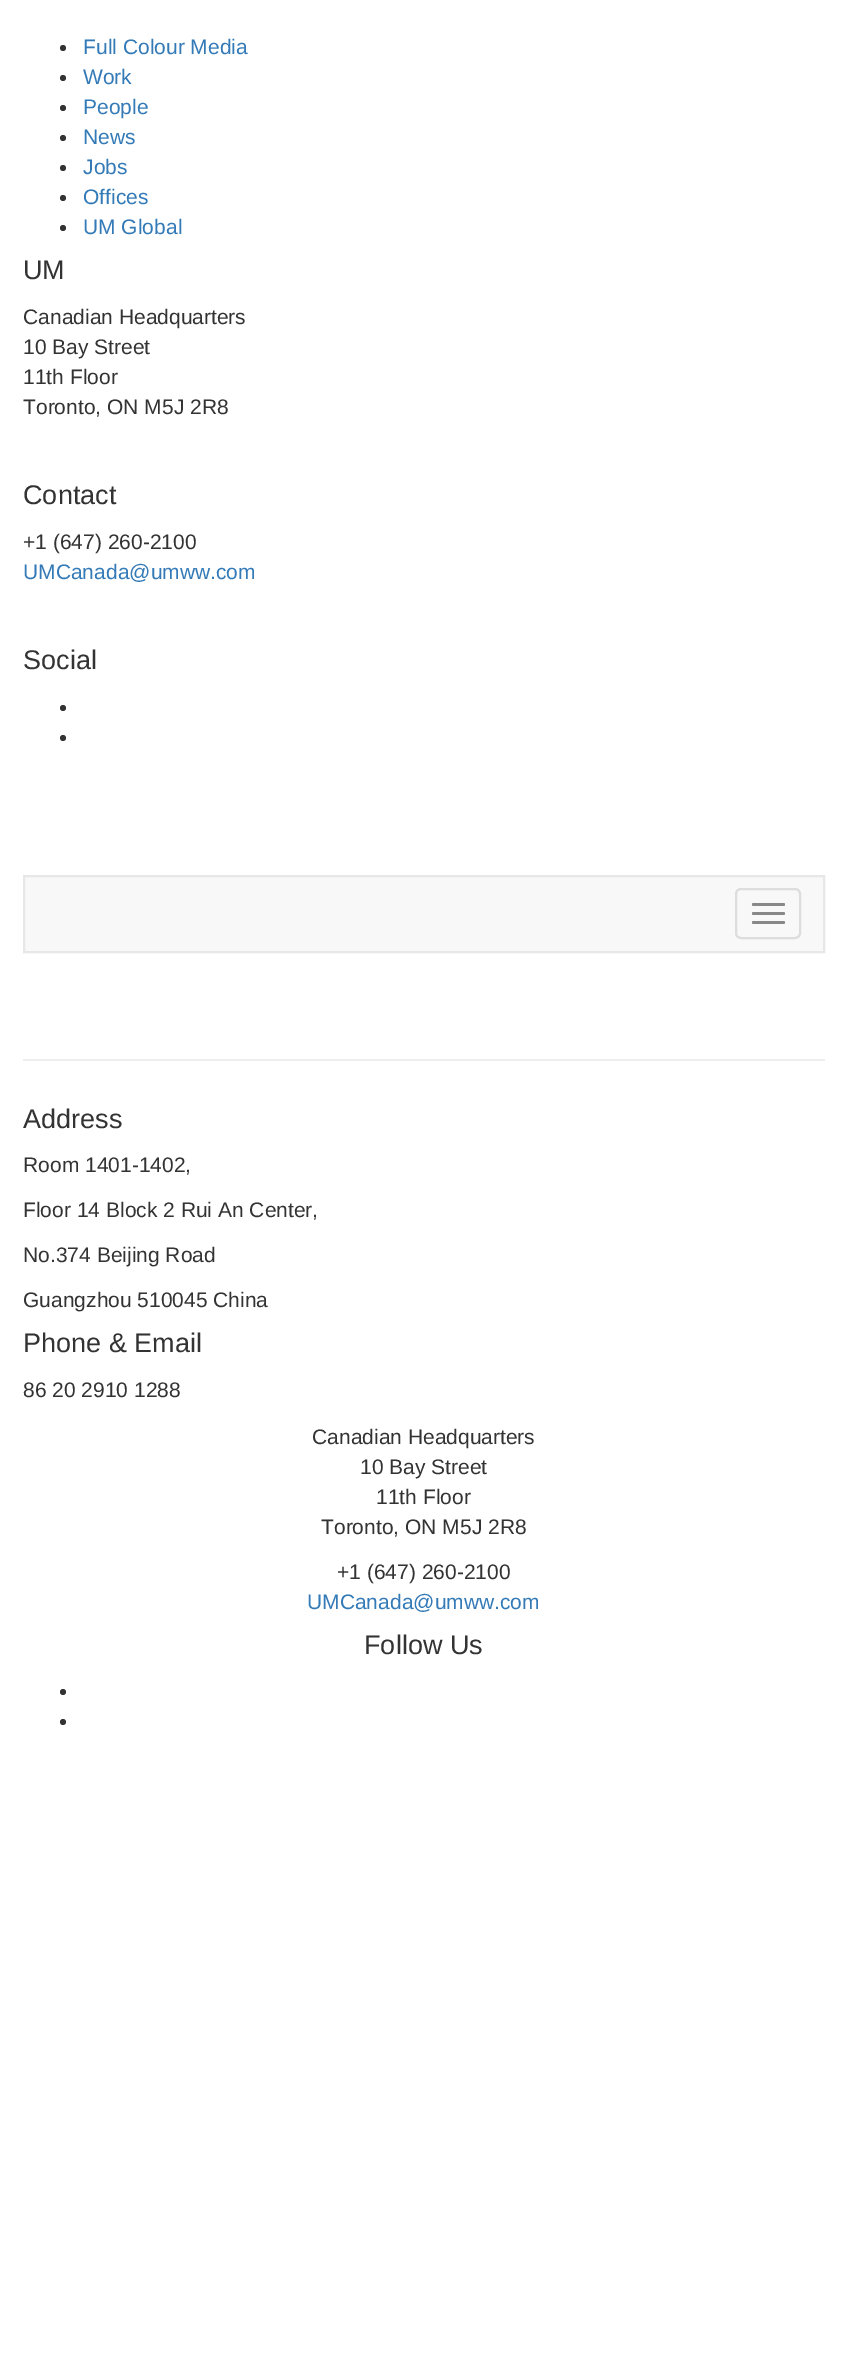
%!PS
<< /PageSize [847 2375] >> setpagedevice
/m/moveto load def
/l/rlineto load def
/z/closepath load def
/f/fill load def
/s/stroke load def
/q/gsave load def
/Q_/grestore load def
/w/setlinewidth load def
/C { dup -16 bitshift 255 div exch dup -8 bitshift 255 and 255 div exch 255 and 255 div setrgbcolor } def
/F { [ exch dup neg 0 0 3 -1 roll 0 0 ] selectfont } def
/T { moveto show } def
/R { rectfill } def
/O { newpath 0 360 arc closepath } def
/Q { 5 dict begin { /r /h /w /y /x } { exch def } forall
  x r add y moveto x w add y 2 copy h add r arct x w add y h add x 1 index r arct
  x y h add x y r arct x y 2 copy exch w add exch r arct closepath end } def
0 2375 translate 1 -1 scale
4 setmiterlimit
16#FFFFFF C
0 0 847 2375 R
16#333333 C
63 48 3 O f
/LiberationSans-Regular 21 F
16#337AB7 C
(Full Colour Media) 83 54 T
16#333333 C
63 78 3 O f
16#337AB7 C
(Work) 83 84 T
16#333333 C
63 108 3 O f
16#337AB7 C
(People) 83 114 T
16#333333 C
63 138 3 O f
16#337AB7 C
(News) 83 144 T
16#333333 C
63 168 3 O f
16#337AB7 C
(Jobs) 83 174 T
16#333333 C
63 198 3 O f
16#337AB7 C
(Offices) 83 204 T
16#333333 C
63 228 3 O f
16#337AB7 C
(UM Global) 83 234 T
/LiberationSans-Regular 27 F
16#333333 C
(UM) 23 279 T
/LiberationSans-Regular 21 F
(Canadian Headquarters) 23 324 T
(10 Bay Street) 23 354 T
(11th Floor) 23 384 T
(Toronto, ON M5J 2R8) 23 414 T
/LiberationSans-Regular 27 F
(Contact) 23 504 T
/LiberationSans-Regular 21 F
(+1 \(647\) 260-2100) 23 549 T
16#337AB7 C
(UMCanada@umww.com) 23 579 T
/LiberationSans-Regular 27 F
16#333333 C
(Social) 23 669 T
63 708 3 O f
63 738 3 O f
16#F8F8F8 C
24 876 m 800 0 l 0 76 l -800 0 l z q f Q_
16#E7E7E7 C
2 w
s
16#DDDDDD C
736 889 64 49 5 Q s
16#888888 C
752 903 33 3 1.5 Q f
752 912 33 3 1.5 Q f
752 921 33 3 1.5 Q f
16#EEEEEE C
23 1059 802 2 R
16#333333 C
(Address) 23 1128 T
/LiberationSans-Regular 21 F
(Room 1401-1402,) 23 1172 T
(Floor 14 Block 2 Rui An Center,) 23 1217 T
(No.374 Beijing Road) 23 1262 T
(Guangzhou 510045 China) 23 1307 T
/LiberationSans-Regular 27 F
(Phone & Email) 23 1352 T
/LiberationSans-Regular 21 F
(86 20 2910 1288) 23 1397 T
(Canadian Headquarters) 312 1444 T
(10 Bay Street) 360 1474 T
(11th Floor) 376 1504 T
(Toronto, ON M5J 2R8) 321 1534 T
(+1 \(647\) 260-2100) 337 1579 T
16#337AB7 C
(UMCanada@umww.com) 307 1609 T
/LiberationSans-Regular 27 F
16#333333 C
(Follow Us) 364 1654 T
63 1692 3 O f
63 1722 3 O f
showpage
